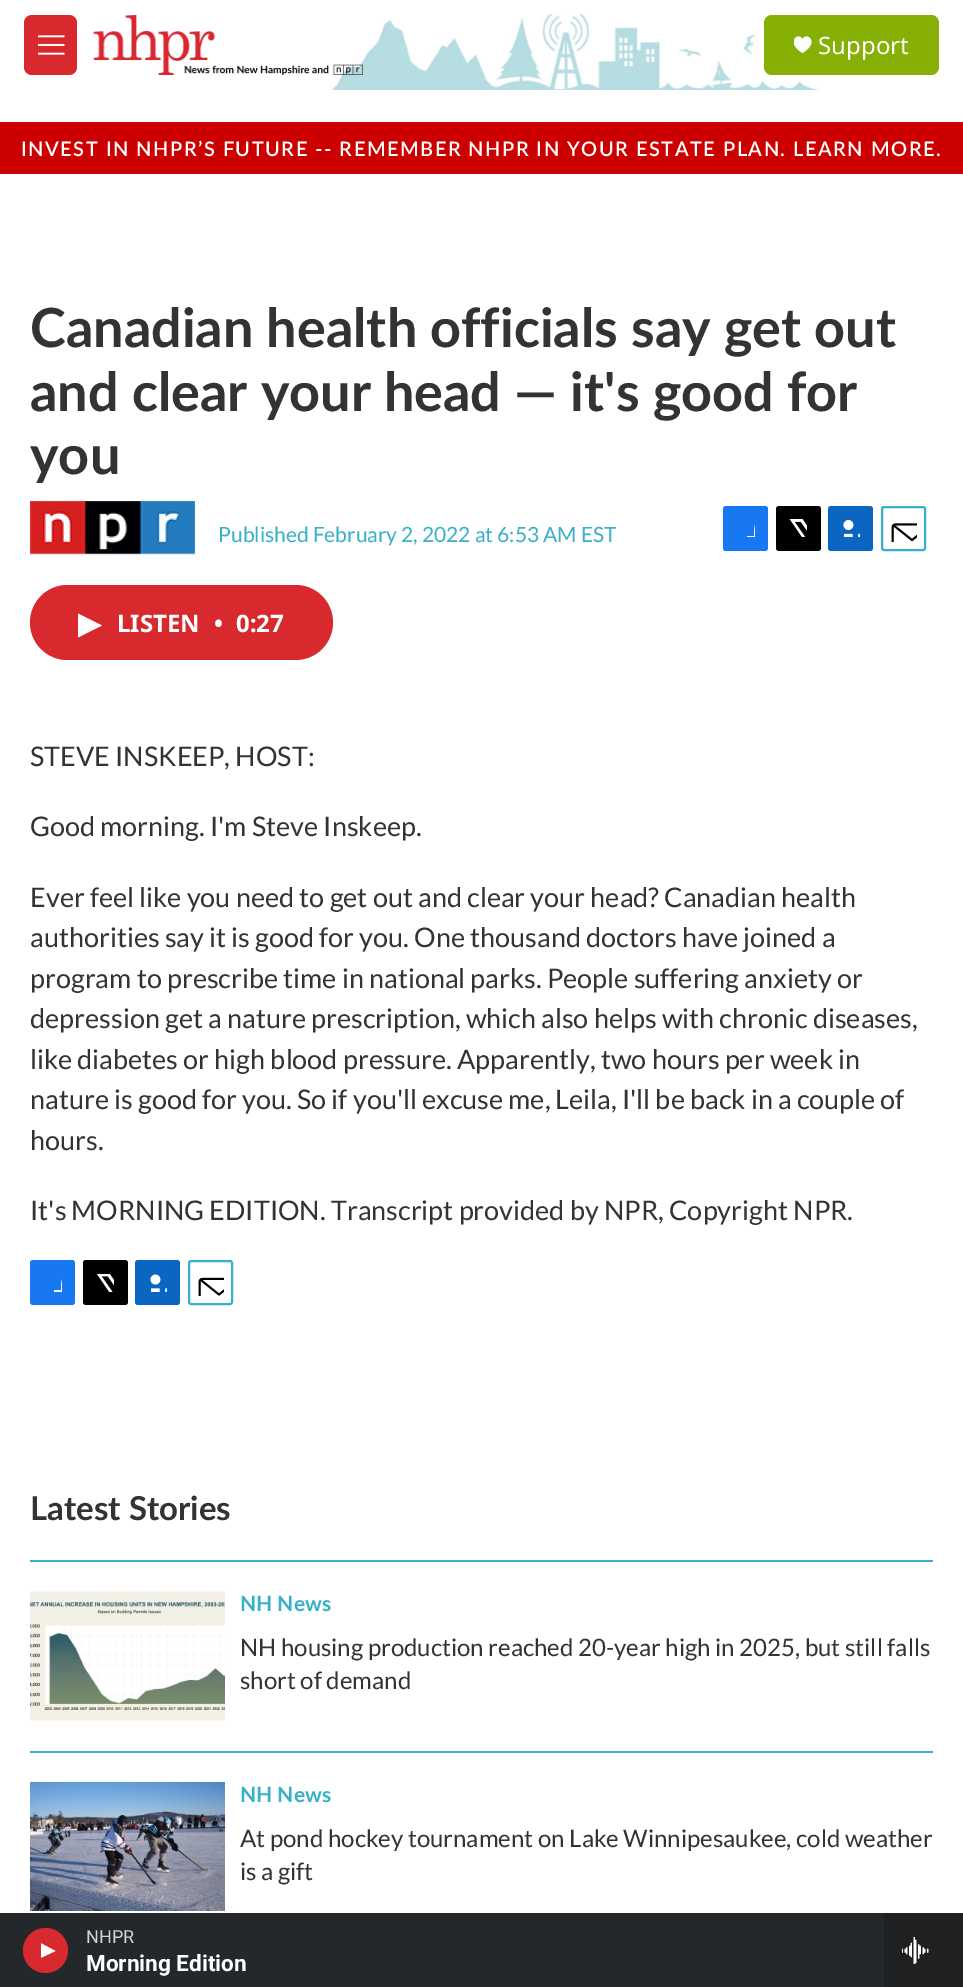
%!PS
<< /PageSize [963 1987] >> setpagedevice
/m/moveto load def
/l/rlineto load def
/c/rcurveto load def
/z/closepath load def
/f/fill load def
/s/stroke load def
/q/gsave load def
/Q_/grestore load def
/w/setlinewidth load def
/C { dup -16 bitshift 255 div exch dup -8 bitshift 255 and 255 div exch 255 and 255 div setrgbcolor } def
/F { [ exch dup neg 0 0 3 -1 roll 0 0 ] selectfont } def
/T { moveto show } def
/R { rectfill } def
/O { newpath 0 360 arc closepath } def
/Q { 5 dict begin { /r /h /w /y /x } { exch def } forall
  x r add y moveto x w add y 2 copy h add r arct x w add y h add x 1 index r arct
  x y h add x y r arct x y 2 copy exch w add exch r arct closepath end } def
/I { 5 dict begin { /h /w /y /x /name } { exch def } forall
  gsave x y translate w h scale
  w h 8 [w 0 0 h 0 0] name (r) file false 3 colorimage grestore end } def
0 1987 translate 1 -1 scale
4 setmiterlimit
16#FFFFFF C
0 0 963 1987 R
(1.rgb) 331 13 488 77 I
16#D8292F C
24 15 53 60 8 Q f
(2.rgb) 38 35 27 20 I
(3.rgb) 93 15 270 60 I
16#87B006 C
764 15 175 60 8 Q f
q
794 36 18 18 rectclip
16#FFFFFF C
802.5 39.5 m -3 -8 -18.5 2 0 13.5 c 18.5 -11.5 3 -21.5 0 -13.5 c z f
Q_
/NotoSans-Regular 24 F
16#FFFFFF C
(Support) 818 54 T
16#25282A C
0 1913 884 74 R
16#D8292F C
45.5 1950.5 22.5 O f
q
41 1943 15 16 rectclip
16#FFFFFF C
40.5 1943 m 15 8 l -15 7 l z f
Q_
/Roboto-Regular 18 F
16#D3D4D4 C
(NHPR) 86 1943 T
/Roboto-Bold 22.5 F
16#FFFFFF C
(Morning Edition) 86 1971 T
16#1E2022 C
884 1913 79 74 R
(4.rgb) 902 1937 27 27 I
16#CC0000 C
0 122 963 52 R
/Lato-SemiBold 20 F
16#FFFFFF C
21 156 m 1.5 0 (INVEST IN NHPR’S FUTURE -- REMEMBER NHPR IN YOUR ESTATE PLAN. LEARN MORE.) ashow
/Lato-Bold 54 F
16#333333 C
(Canadian health officials say get out) 30 347 T
(and clear your head — it's good for) 30 411 T
(you) 30 474 T
(5.rgb) 30 501 165 54 I
/Lato-Regular 21 F
16#37B0C9 C
(Published February 2, 2022 at 6:53 AM EST) 218 542 T
16#1778F2 C
723 506 45 45 3 Q f
q
737 519 18 18 rectclip
16#FFFFFF C
761 551 m -7 0 l 0 -8 l -7 0 l 0 -7 l 7 0 l 0 -12.5 1 -18 14 -16 c 0 7 l -8.5 0 -7 1.5 -7 9 c 7 0 l -1 7 l -6 0 l z f
Q_
16#000000 C
776 506 45 45 3 Q f
(6.rgb) 789 519 18 18 I
16#0A66C1 C
828 506 45 45 3 Q f
(7.rgb) 843 520 17 17 I
16#37B0C9 C
2 w
882 507 43 43 2 Q s
(8.rgb) 891 523 26 19 I
16#D8292F C
30 585 303 75 37.5 Q f
16#FFFFFF C
78 613.5 m 24 12 l -24 12 l z f
/NotoSans-Bold 24 F
(LISTEN) 117 632 T
(•) 214 632 T
(0:27) 236 632 T
/Lato-Regular 27 F
16#333333 C
(STEVE INSKEEP, HOST:) 30 766 T
(Good morning. I'm Steve Inskeep.) 30 836 T
(Ever feel like you need to get out and clear your head? Canadian health) 30 907 T
(authorities say it is good for you. One thousand doctors have joined a) 30 947 T
(program to prescribe time in national parks. People suffering anxiety or) 30 988 T
(depression get a nature prescription, which also helps with chronic diseases,) 30 1028 T
(like diabetes or high blood pressure. Apparently, two hours per week in) 30 1069 T
(nature is good for you. So if you'll excuse me, Leila, I'll be back in a couple of) 30 1109 T
(hours.) 30 1150 T
(It's MORNING EDITION. Transcript provided by NPR, Copyright NPR.) 30 1220 T
16#1778F2 C
30 1260 45 45 3 Q f
q
44 1274 18 18 rectclip
16#FFFFFF C
68 1305 m -7 0 l 0 -7 l -7 0 l 0 -8 l 7 0 l 0 -11.5 1 -17.5 14 -16 c 0 7 l -8 0 -7 2.5 -7 9 c 7 0 l -1 8 l -6 0 l z f
Q_
16#000000 C
83 1260 45 45 3 Q f
(9.rgb) 97 1274 17 18 I
16#0A66C1 C
135 1260 45 45 3 Q f
(10.rgb) 150 1274 17 18 I
16#37B0C9 C
189 1261 43 43 2 Q s
(11.rgb) 198 1277 26 19 I
30 1560 903 2 R
/Lato-Bold 33 F
16#333333 C
(Latest Stories) 30 1520 T
16#37B0C9 C
30 1751 903 2 R
(12.rgb) 30 1591 195 130 I
/Lato-Bold 21 F
(NH News) 240 1611 T
/Lato-Regular 24 F
16#333333 C
(NH housing production reached 20-year high in 2025, but still falls) 240 1656 T
(short of demand) 240 1689 T
(13.rgb) 30 1782 195 129 I
/Lato-Bold 21 F
16#37B0C9 C
(NH News) 240 1802 T
/Lato-Regular 24 F
16#333333 C
(At pond hockey tournament on Lake Winnipesaukee, cold weather) 240 1847 T
(is a gift) 240 1880 T
showpage
